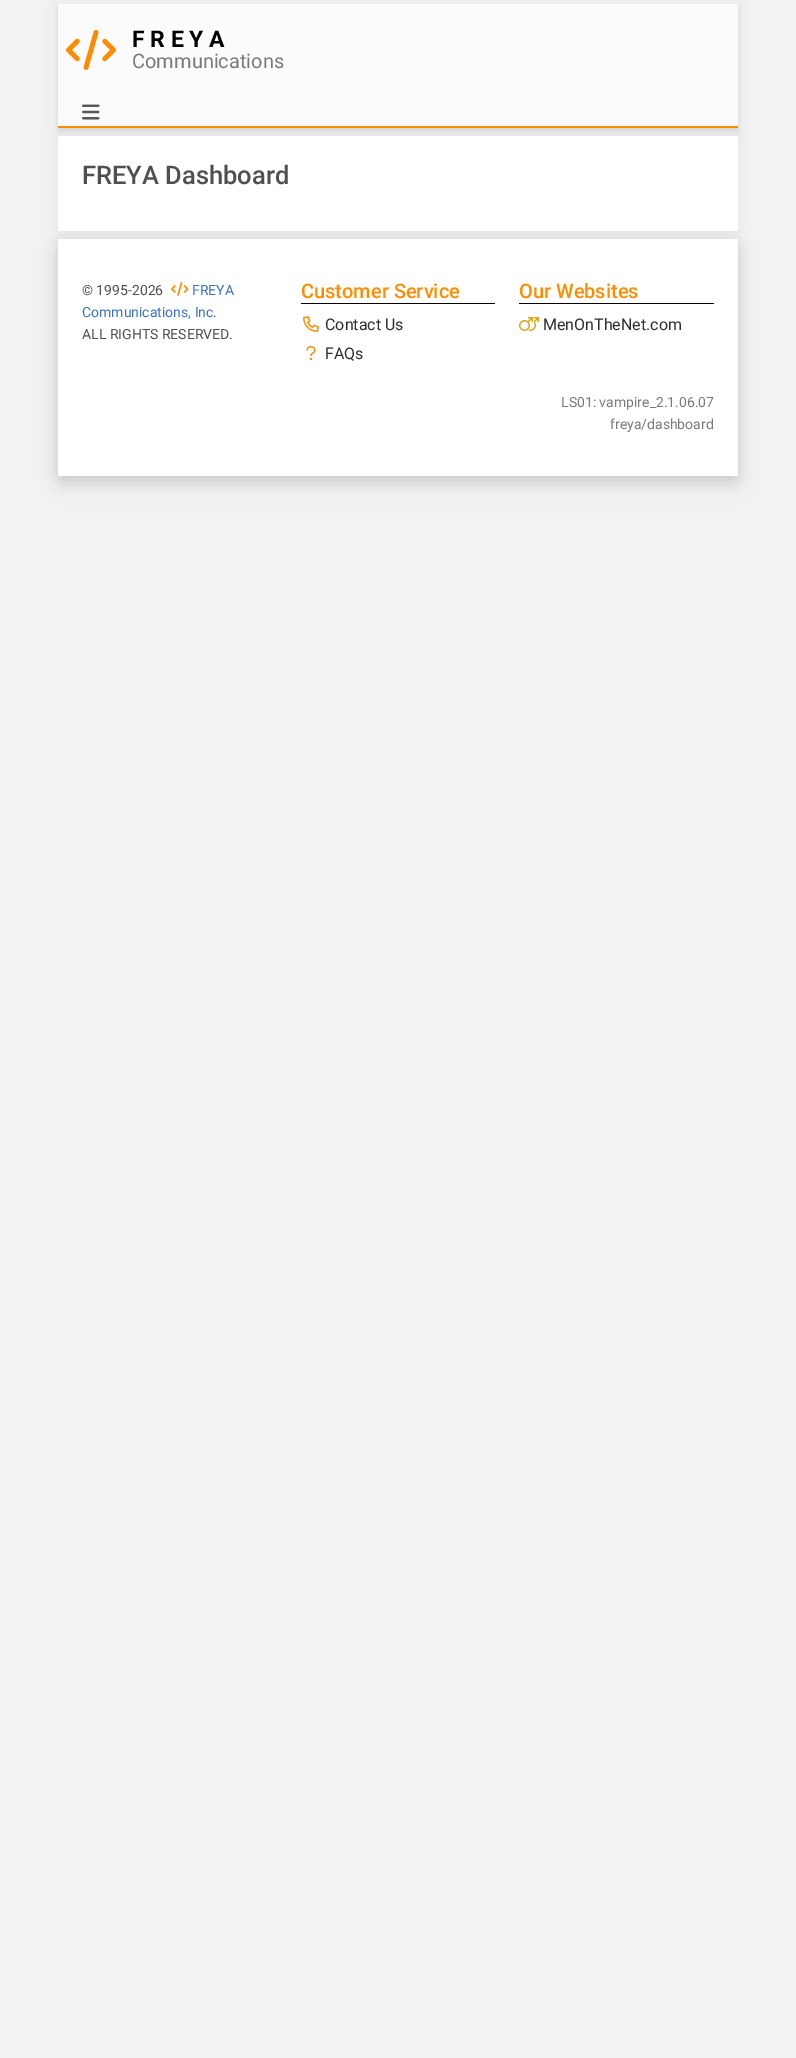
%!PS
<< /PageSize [796 2058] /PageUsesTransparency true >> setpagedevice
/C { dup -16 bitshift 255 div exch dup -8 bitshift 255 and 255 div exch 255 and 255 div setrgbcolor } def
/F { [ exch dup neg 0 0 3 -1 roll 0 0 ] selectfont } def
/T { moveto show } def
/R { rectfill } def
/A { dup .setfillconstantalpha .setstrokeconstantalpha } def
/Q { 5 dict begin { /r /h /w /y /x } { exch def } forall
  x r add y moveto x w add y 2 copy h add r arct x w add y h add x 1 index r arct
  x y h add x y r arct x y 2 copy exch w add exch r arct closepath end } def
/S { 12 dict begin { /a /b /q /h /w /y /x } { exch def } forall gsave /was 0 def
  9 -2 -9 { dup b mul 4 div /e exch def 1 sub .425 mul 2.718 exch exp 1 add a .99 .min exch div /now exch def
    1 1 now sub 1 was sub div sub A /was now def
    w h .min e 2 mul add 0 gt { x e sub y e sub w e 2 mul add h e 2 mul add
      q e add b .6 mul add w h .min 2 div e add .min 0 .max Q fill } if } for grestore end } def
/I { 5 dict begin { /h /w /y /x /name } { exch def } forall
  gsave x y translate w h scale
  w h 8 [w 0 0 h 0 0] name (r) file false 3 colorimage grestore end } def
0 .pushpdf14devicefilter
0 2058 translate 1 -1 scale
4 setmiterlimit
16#F2F2F2 C
0 0 796 2058 R
16#000000 C
58 6 680 124 0 2 .05 S
58 8 680 124 0 6 .07 S
16#FBFBFB C
58 4 680 122 R
16#FF8C00 C
58 126 680 2 R
(1.rgb) 66 30 50 40 I
/Roboto-Bold 23 F
16#000000 C
(F R E Y A) 132 47 T
/Roboto-Regular 20 F
16#7A7A7A C
(Communications) 132 68 T
(2.rgb) 82 104 18 16 I
16#000000 C
61 141 674 89 0 7.5 .07 S
16#FFFFFF C
58 136 680 95 R
/Roboto-Medium 25.5 F
16#4F4F4F C
(FREYA Dashboard) 82 184 T
16#000000 C
60 251 676 233 0 10 .1 S
61 244 674 231 0 7.5 .16 S
16#FFFFFF C
58 239 680 237 R
/Roboto-Regular 14 F
16#4F4F4F C
(© 1995-2026) 82 295 T
(3.rgb) 171 282 18 14 I
16#3B71CA C
(FREYA) 192 295 T
(Communications, Inc.) 82 317 T
16#4F4F4F C
(ALL RIGHTS RESERVED.) 82 339 T
16#000000 C
301 303 194 1 R
/Roboto-Medium 20 F
16#FF8C00 C
(Customer Service) 301 298 T
(4.rgb) 303 316 16 16 I
/Roboto-Regular 16 F
16#332D2D C
(Contact Us) 325 330 T
(5.rgb) 306 346 10 14 I
(FAQs) 325 359 T
16#000000 C
519 303 195 1 R
/Roboto-Medium 20 F
16#FF8C00 C
(Our Websites) 519 298 T
(6.rgb) 519 317 20 14 I
/Roboto-Regular 16 F
16#332D2D C
(MenOnTheNet.com) 543 330 T
/Roboto-Regular 14 F
16#7A7A7A C
(LS01: vampire_2.1.06.07) 561 407 T
(freya/dashboard) 610 429 T
.poppdf14devicefilter showpage
